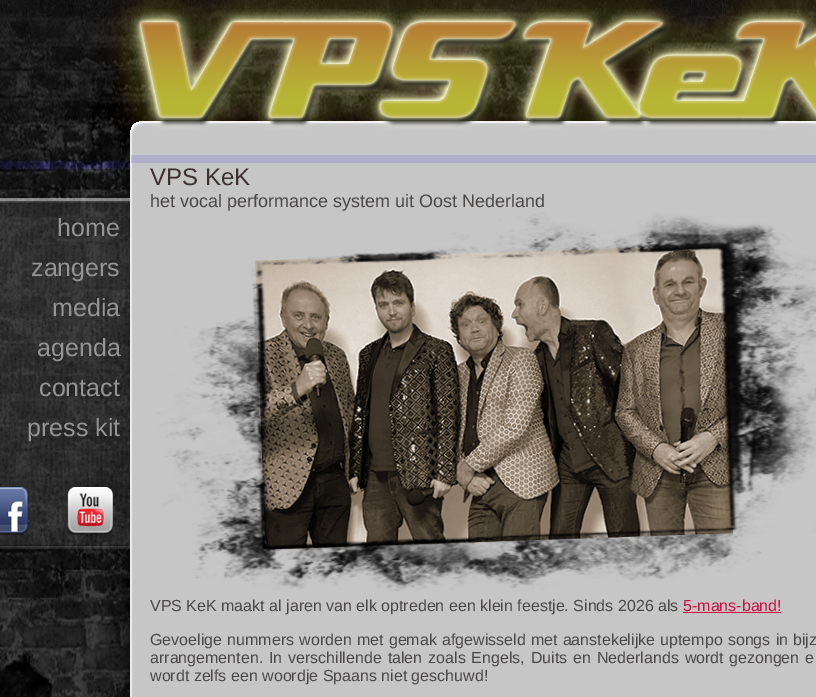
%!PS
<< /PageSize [816 697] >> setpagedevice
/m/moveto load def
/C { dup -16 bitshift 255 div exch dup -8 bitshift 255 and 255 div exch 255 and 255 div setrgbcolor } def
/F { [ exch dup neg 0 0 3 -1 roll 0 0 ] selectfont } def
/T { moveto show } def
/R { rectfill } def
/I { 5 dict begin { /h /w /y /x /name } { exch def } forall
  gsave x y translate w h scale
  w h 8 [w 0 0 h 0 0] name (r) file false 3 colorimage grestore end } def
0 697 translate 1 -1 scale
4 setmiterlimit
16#FFFFFF C
0 0 816 697 R
(1.rgb) 0 0 816 697 I
(2.rgb) 129 9 687 154 I
(3.rgb) 0 198 130 29 I
(4.rgb) 0 227 130 299 I
/LiberationSans-Regular 25 F
16#969595 C
(home) 57 236 T
(zangers) 31 276 T
(media) 52 316 T
(agenda) 37 356 T
(contact) 39 396 T
(press kit) 27 436 T
(7.rgb) 0 526 130 29 I
(5.rgb) 0 487 28 48 I
(6.rgb) 67 487 46 48 I
(8.rgb) 130 163 686 534 I
/LiberationSans-Regular 24 F
16#3D3030 C
(VPS KeK) 150 185 T
/LiberationSans-Regular 18 F
16#4B4848 C
(het vocal performance system uit Oost Nederland) 150 207 T
(10.rgb) 255 244 478 306 I
(9.rgb) 155 212 661 380 I
/LiberationSans-Regular 16 F
(VPS KeK maakt al jaren van elk optreden een klein feestje. Sinds 2026 als) 150 611 T
16#CD1041 C
(5-mans-band!) 683 611 T
683 612 98 1 R
16#4B4848 C
150 645 m .75 0 32 (Gevoelige nummers worden met gemak afgewisseld met aanstekelijke uptempo songs in) widthshow
(bijz) 793 645 T
150 663 m 1.5 0 32 (arrangementen. In verschillende talen zoals Engels, Duits en Nederlands wordt) widthshow
729 663 m 1 0 32 (gezongen e) widthshow
(wordt zelfs een woordje Spaans niet geschuwd!) 150 681 T
showpage
